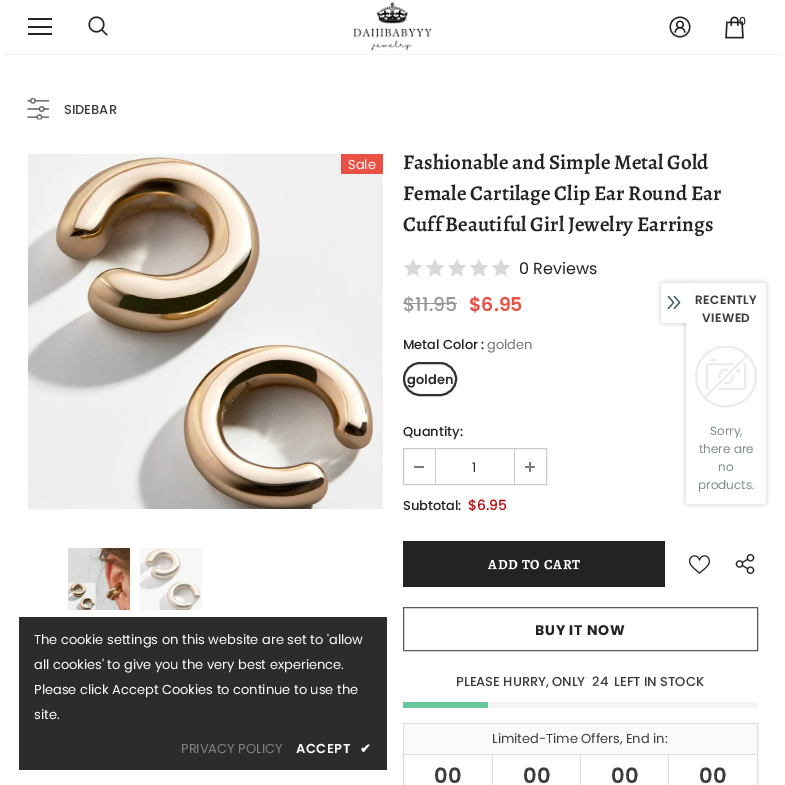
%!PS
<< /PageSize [785 785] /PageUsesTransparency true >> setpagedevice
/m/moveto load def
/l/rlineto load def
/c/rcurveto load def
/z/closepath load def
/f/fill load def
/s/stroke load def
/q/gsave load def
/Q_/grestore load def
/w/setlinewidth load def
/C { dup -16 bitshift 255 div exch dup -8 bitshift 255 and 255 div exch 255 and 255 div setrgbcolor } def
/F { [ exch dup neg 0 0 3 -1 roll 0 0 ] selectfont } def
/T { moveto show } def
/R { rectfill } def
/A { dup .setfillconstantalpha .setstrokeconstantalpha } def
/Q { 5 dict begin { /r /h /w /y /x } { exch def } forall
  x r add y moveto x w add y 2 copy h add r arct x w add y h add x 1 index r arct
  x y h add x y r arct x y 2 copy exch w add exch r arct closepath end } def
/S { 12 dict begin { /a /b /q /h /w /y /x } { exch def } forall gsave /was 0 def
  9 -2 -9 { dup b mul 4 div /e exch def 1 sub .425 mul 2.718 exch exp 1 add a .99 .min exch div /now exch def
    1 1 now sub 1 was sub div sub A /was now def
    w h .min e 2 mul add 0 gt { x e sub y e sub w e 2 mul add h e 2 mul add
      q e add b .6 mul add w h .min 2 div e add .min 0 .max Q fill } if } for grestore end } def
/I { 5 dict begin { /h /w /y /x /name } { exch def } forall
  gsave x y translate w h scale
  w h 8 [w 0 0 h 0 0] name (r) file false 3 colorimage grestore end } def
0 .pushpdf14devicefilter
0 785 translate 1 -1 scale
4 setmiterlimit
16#FFFFFF C
0 0 785 785 R
q
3 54 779 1 rectclip
16#000000 C
3 6 779 48 0 1.5 .12 S
Q_
16#232323 C
28 18 24 2 R
28 26 24 2 R
28 33 24 2 R
(1.rgb) 88 16 20 20 I
(2.rgb) 353 2 79 49 I
(3.rgb) 669 16 22 22 I
(4.rgb) 725 16 19 23 I
/Poppins-Medium 11 F
16#2D2D2D C
(0) 739 25 T
(5.rgb) 27 97 23 23 I
/Poppins-Medium 13 F
16#3C3C3C C
(SIDEBAR) 64 114 T
(6.rgb) 28 154 355 355 I
16#E95144 C
341 154 42 20 1 Q f
/Poppins-Regular 13 F
16#FFFFFF C
(Sale) 348 169 T
(7.rgb) 68 548 62 62 I
(8.rgb) 140 548 62 62 I
/Alegreya-SemiBold 21 F
16#232323 C
(Fashionable and Simple Metal Gold) 403 169 T
(Female Cartilage Clip Ear Round Ear) 403 200 T
(Cuff Beautiful Girl Jewelry Earrings) 403 231 T
(9.rgb) 403 259 20 18 I
(9.rgb) 425 259 20 18 I
(9.rgb) 447 259 20 18 I
(9.rgb) 469 259 20 18 I
(9.rgb) 491 259 20 18 I
/Poppins-Regular 16 F
(0 Reviews) 519 274 T
/Poppins-Medium 19 F
16#969696 C
($11.95) 403 311 T
403 303 54 1 R
/Poppins-SemiBold 19 F
16#E95144 C
($6.95) 469 311 T
/Poppins-Medium 13 F
16#232323 C
(Metal Color :) 403 349 T
/Poppins-Regular 13 F
16#737373 C
(golden) 487 349 T
16#E7E7E7 C
403.5 362.5 53 33 16.5 Q s
16#323232 C
2 w
404 363 52 32 16 Q s
/Poppins-SemiBold 13 F
16#2D2D2D C
(golden) 407 384 T
/Poppins-Medium 13 F
16#232323 C
(Quantity:) 403 436 T
16#CBCBCB C
1 w
403.5 448.5 143 36 rectstroke
435 449 1 35 R
16#7B7B7B C
414 466 10 2 R
/Poppins-Regular 13 F
16#2D2D2D C
(1) 472 472 T
16#CBCBCB C
514 449 1 35 R
16#7B7B7B C
525 466 10 2 R
529 462 2 10 R
/Poppins-Medium 13 F
16#232323 C
(Subtotal:) 403 510 T
/Poppins-Medium 14 F
16#BC0707 C
($6.95) 468 510 T
16#232323 C
403 541 262 46 R
/Alegreya-Bold 14 F
16#FFFFFF C
488 569 m .75 0 (ADD TO CART) ashow
(10.rgb) 689 555 21 19 I
(11.rgb) 735 554 20 20 I
16#5A5A5A C
403.5 607.5 354 43 rectstroke
/Poppins-Bold 14 F
16#232323 C
535 635 m .75 0 (BUY IT NOW) ashow
/Poppins-Medium 13 F
16#3C3C3C C
(PLEASE HURRY, ONLY) 456 686 T
(24) 592 686 T
(LEFT IN STOCK) 614 686 T
16#F5F5F5 C
488 702 270 6 R
16#69C69C C
403 702 85 6 R
16#DCDCDC C
403.5 723.5 354 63 .5 Q s
16#FAFAFA C
404 724 353 30 R
16#DCDCDC C
404 754 353 1 R
/Poppins-Regular 13 F
16#3C3C3C C
(Limited-Time Offers, End in:) 492 743 T
/Poppins-SemiBold 21 F
(00) 434 783 T
16#DCDCDC C
492 755 1 30 R
16#3C3C3C C
(00) 523 783 T
16#DCDCDC C
580 755 1 30 R
16#3C3C3C C
(00) 611 783 T
16#DCDCDC C
668 755 1 30 R
16#3C3C3C C
(00) 699 783 T
16#2C2C2C C
19 617 368 153 R
/Poppins-Regular 13 F
16#FFFFFF C
(The cookie settings on this website are set to 'allow) 34 644 T
(all cookies' to give you the very best experience.) 34 669 T
(Please click Accept Cookies to continue to use the) 34 694 T
(site.) 34 719 T
16#818181 C
(PRIVACY POLICY) 181 753 T
/Poppins-SemiBold 13 F
16#FFFFFF C
296 753 m .5 0 (ACCEPT) ashow
/DejaVuSans-Bold 13 F
360 753 m .5 0 (✔) ashow
16#000000 C
684 281 84 225 5 1.5 .1 S
16#FFFFFF C
686 283 m 77 0 l 1.5 0 3 1.5 3 3 c 0 215 l 0 1.5 -1.5 3 -3 3 c -74 0 l -1.5 0 -3 -1.5 -3 -3 c z f
16#000000 C
659 281 30 44 5 1.5 .1 S
16#FFFFFF C
664 283 m 23 0 l 0 40 l -23 0 l -1.5 0 -3 -1.5 -3 -3 c 0 -34 l 0 -1.5 1.5 -3 3 -3 c z f
(12.rgb) 667 296 14 14 I
686 283 5 43 R
/Poppins-SemiBold 12 F
16#3C3C3C C
695 304 m .5 0 (RECENTLY) ashow
702 322 m .5 0 (VIEWED) ashow
(13.rgb) 695 346 62 62 I
/Poppins-Regular 12 F
16#7D8B8E C
(Sorry,) 710 435 T
(there are) 699 453 T
(no) 718 471 T
(products.) 698 489 T
.poppdf14devicefilter showpage
